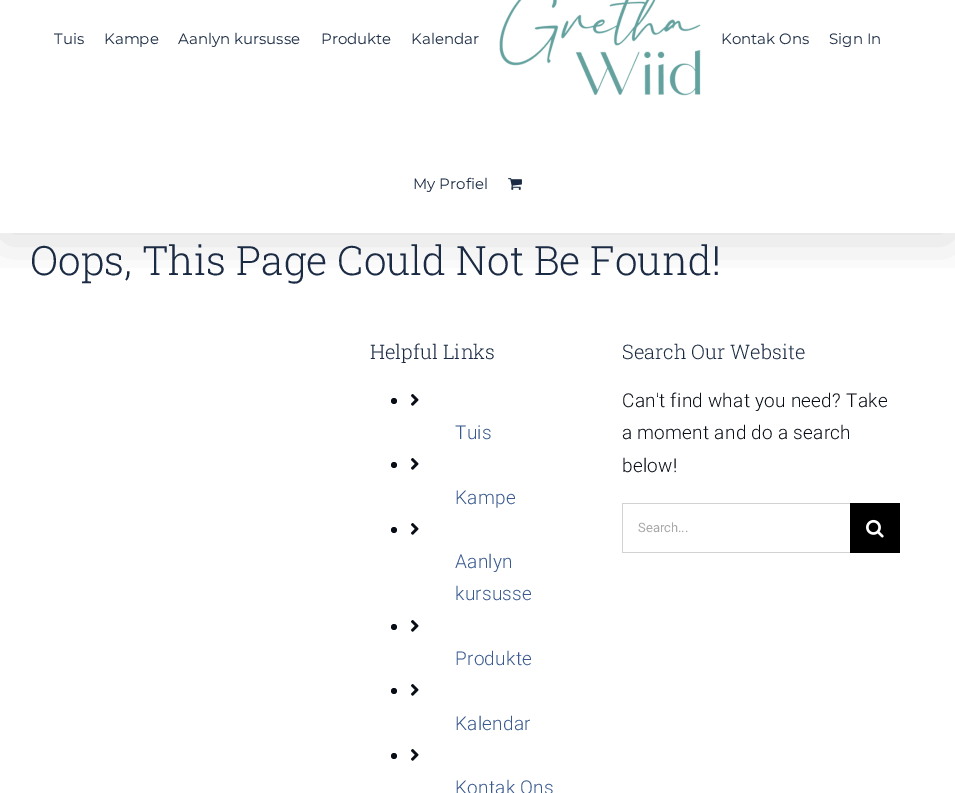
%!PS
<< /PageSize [955 793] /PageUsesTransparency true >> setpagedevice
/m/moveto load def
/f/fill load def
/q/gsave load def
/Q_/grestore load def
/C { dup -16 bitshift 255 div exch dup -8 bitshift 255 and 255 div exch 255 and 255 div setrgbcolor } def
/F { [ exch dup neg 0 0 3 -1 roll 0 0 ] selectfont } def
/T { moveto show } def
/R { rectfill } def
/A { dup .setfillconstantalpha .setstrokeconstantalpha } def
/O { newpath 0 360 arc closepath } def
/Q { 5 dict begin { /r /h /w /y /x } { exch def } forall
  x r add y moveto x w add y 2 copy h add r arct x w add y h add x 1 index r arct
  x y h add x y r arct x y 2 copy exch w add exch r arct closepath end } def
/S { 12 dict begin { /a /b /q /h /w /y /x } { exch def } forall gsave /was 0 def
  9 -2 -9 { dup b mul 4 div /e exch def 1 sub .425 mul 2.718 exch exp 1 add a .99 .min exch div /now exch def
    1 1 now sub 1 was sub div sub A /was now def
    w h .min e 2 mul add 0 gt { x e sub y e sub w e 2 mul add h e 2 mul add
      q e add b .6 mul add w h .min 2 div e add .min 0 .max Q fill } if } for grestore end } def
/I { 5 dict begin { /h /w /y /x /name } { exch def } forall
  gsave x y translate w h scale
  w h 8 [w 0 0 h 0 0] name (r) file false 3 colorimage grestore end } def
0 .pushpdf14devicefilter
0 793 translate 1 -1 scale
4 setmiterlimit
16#FFFFFF C
0 0 955 793 R
q
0 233 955 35 rectclip
16#000000 C
2 -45 951 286 0 25 .14 S
Q_
/Montserrat-Thin 15 F
16#1B2B44 C
(Tuis) 54 44 T
(Kampe) 104 44 T
(Aanlyn kursusse) 178 44 T
(Produkte) 321 44 T
(Kalendar) 411 44 T
(1.rgb) 499 0 202 96 I
(Kontak Ons) 721 44 T
(Sign In) 829 44 T
(My Profiel) 413 189 T
(2.rgb) 508 178 14 12 I
/RobotoSlab-Light 40.5 F
(Oops, This Page Could Not Be Found!) 30 275 T
/RobotoSlab-Light 20 F
(Helpful Links) 370 359 T
16#090E16 C
394 401 3 O f
(3.rgb) 411 394 8 12 I
/Roboto-Light 19 F
16#39598E C
455 439 m .25 0 (Tuis) ashow
16#090E16 C
394 465 3 O f
(3.rgb) 411 458 8 12 I
16#39598E C
455 504 m .25 0 (Kampe) ashow
16#090E16 C
394 530 3 O f
(3.rgb) 411 523 8 12 I
16#39598E C
455 568 m .25 0 (Aanlyn) ashow
455 600 m .25 0 (kursusse) ashow
16#090E16 C
394 627 3 O f
(3.rgb) 411 620 8 12 I
16#39598E C
455 665 m .25 0 (Produkte) ashow
16#090E16 C
394 691 3 O f
(3.rgb) 411 684 8 12 I
16#39598E C
455 730 m .25 0 (Kalendar) ashow
16#090E16 C
394 756 3 O f
(3.rgb) 411 749 8 12 I
16#39598E C
455 794 m .25 0 (Kontak Ons) ashow
/RobotoSlab-Light 20 F
16#1B2B44 C
(Search Our Website) 622 359 T
/Roboto-Light 19 F
16#090E16 C
622 407 m .25 0 (Can't find what you need? Take) ashow
622 439 m .25 0 (a moment and do a search) ashow
622 472 m .25 0 (below!) ashow
16#D2D2D2 C
622 503 228 1 R
622 552 228 1 R
622 503 1 50 R
/Roboto-Regular 13 F
16#AAA9A9 C
(Search...) 638 532 T
16#000000 C
850 503 50 50 R
(4.rgb) 866 519 18 19 I
.poppdf14devicefilter showpage
